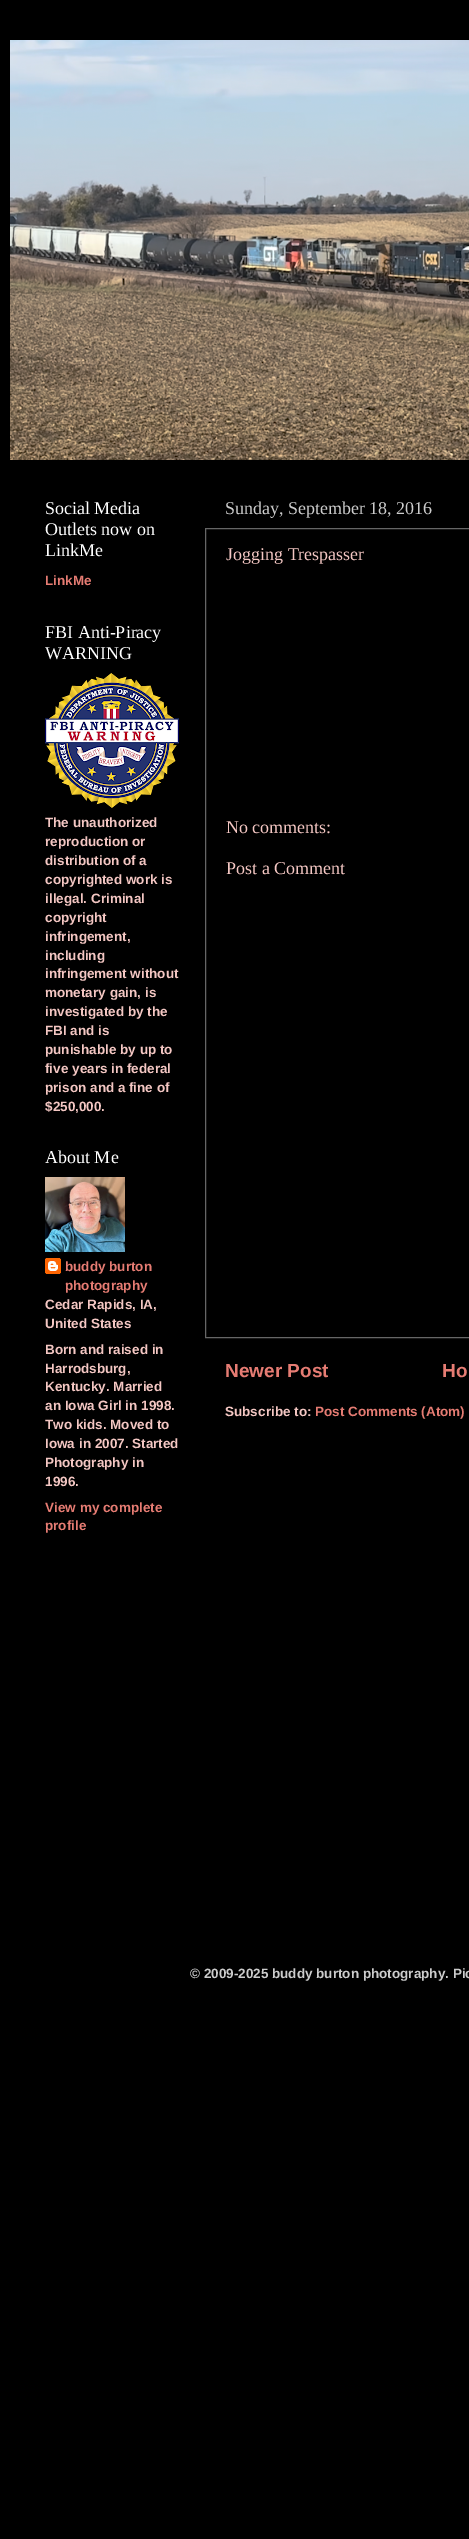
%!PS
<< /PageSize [469 2539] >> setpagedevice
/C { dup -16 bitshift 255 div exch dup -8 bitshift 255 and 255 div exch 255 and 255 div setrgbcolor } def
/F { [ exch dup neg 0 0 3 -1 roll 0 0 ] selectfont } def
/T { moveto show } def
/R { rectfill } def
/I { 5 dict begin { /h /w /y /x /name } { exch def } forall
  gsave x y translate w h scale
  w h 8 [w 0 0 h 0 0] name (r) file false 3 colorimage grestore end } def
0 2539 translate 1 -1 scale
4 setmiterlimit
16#000000 C
0 0 469 2539 R
(1.rgb) 10 40 459 420 I
/LiberationSerif-Regular 18 F
16#FFFFFF C
(Social Media) 45 514 T
(Outlets now on) 45 535 T
(LinkMe) 45 556 T
/LiberationSans-Bold 13.5 F
16#E67C73 C
(LinkMe) 45 585 T
/LiberationSerif-Regular 18 F
16#FFFFFF C
(FBI Anti-Piracy) 45 638 T
(WARNING) 45 659 T
(2.rgb) 45 673 134 135 I
/LiberationSans-Bold 13.5 F
16#F4C7C3 C
(The unauthorized) 45 827 T
(reproduction or) 45 846 T
(distribution of a) 45 865 T
(copyrighted work is) 45 884 T
(illegal. Criminal) 45 903 T
(copyright) 45 922 T
(infringement,) 45 941 T
(including) 45 960 T
(infringement without) 45 978 T
(monetary gain, is) 45 997 T
(investigated by the) 45 1016 T
(FBI and is) 45 1035 T
(punishable by up to) 45 1054 T
(five years in federal) 45 1073 T
(prison and a fine of) 45 1092 T
($250,000.) 45 1111 T
/LiberationSerif-Regular 18 F
16#FFFFFF C
(About Me) 45 1163 T
(3.rgb) 45 1177 80 75 I
(4.rgb) 45 1258 16 16 I
/LiberationSans-Bold 13.5 F
16#E67C73 C
(buddy burton) 65 1271 T
(photography) 65 1290 T
16#F4C7C3 C
(Cedar Rapids, IA,) 45 1309 T
(United States) 45 1328 T
(Born and raised in) 45 1354 T
(Harrodsburg,) 45 1373 T
(Kentucky. Married) 45 1391 T
(an Iowa Girl in 1998.) 45 1410 T
(Two kids. Moved to) 45 1429 T
(Iowa in 2007. Started) 45 1448 T
(Photography in) 45 1467 T
(1996.) 45 1486 T
16#E67C73 C
(View my complete) 45 1512 T
(profile) 45 1530 T
/LiberationSerif-Regular 18 F
16#CCCCCC C
(Sunday, September 18, 2016) 225 514 T
16#666666 C
205.5 528.5 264 809 rectstroke
16#F4C7C3 C
(Jogging Trespasser) 226 560 T
(No comments:) 226 833 T
(Post a Comment) 226 874 T
/LiberationSans-Bold 19 F
16#E67C73 C
(Newer Post) 225 1377 T
(Ho) 442 1377 T
/LiberationSans-Bold 13.5 F
16#F4C7C3 C
(Subscribe to:) 225 1416 T
16#E67C73 C
(Post Comments \(Atom\)) 315 1416 T
16#CCCCCC C
(© 2009-2025 buddy burton photography. Pic) 190 1978 T
showpage
